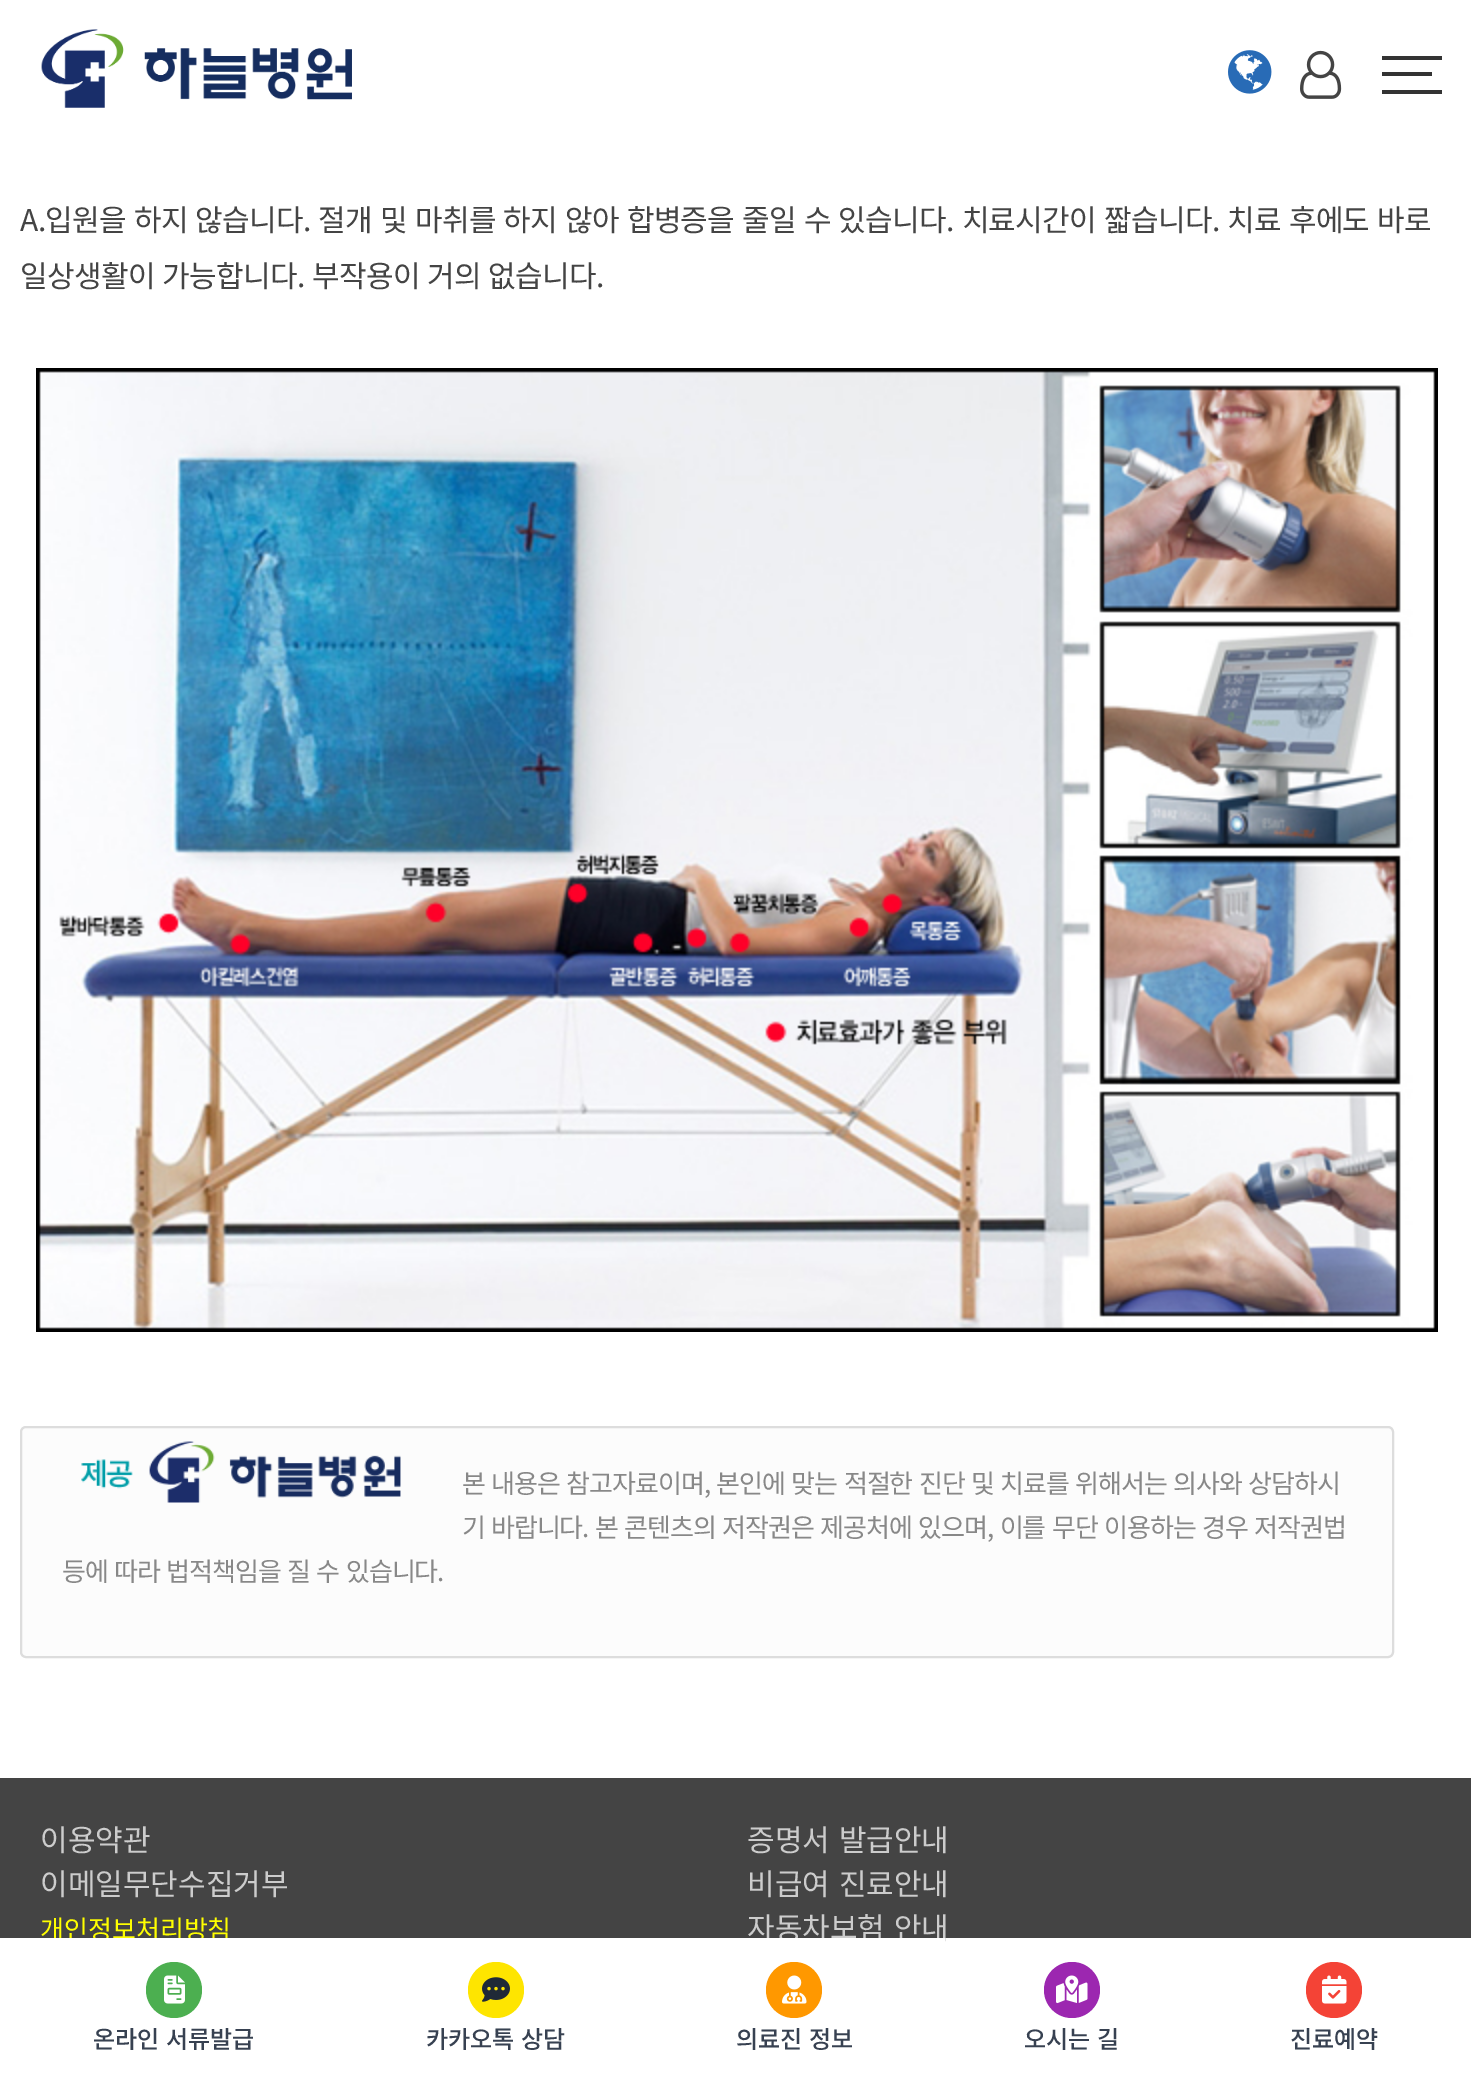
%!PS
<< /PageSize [1471 2078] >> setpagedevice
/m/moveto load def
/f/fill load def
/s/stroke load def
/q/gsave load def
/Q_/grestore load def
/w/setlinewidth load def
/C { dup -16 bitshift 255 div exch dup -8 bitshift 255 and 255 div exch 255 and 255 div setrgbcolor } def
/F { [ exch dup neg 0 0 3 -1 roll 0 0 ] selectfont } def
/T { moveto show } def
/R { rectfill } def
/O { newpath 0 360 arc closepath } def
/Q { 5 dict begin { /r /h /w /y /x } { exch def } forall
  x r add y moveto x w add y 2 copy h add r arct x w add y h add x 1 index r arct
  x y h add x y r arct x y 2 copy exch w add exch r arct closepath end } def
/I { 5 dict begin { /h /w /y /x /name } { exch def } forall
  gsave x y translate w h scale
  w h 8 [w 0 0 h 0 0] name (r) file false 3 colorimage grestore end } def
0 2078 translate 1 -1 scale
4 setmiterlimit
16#FFFFFF C
0 0 1471 2078 R
(1.rgb) 41 29 311 79 I
(2.rgb) 1228 50 44 44 I
(3.rgb) 1300 50 42 49 I
16#333333 C
1382 56 60 4 R
1382 72 50 4 R
1382 90 60 4 R
/NotoSansKR-Regular 30 F
16#444444 C
20 231 m 1.75 0 32 -.68 0 (A.입원을 하지 않습니다. 절개 및 마취를 하지 않아 합병증을 줄일 수 있습니다. 치료시간이 짧습니다. 치료 후에도 바로) awidthshow
20 287 m 1.5 0 32 -.68 0 (일상생활이 가능합니다. 부작용이 거의 없습니다.) awidthshow
(4.rgb) 36 368 1402 964 I
16#FCFCFC C
21 1427 1372 230 5 Q q f Q_
16#DDDDDD C
2 w
s
(5.rgb) 81 1441 320 62 I
/NotoSansKR-Regular 26 F
16#888888 C
462 1493 m 1.5 0 32 -1 0 (본 내용은 참고자료이며, 본인에 맞는 적절한 진단 및 치료를 위해서는 의사와 상담하시) awidthshow
462 1537 m 1 0 32 -1 0 (기 바랍니다.) awidthshow
595 1537 m 1.5 0 32 -1 0 (본 콘텐츠의 저작권은 제공처에 있으며, 이를 무단 이용하는 경우 저작권법) awidthshow
62 1581 m 1.5 0 32 -1 0 (등에 따라 법적책임을 질 수 있습니다.) awidthshow
16#444444 C
0 1778 1471 160 R
/NotoSansKR-Regular 30 F
16#CCCCCC C
(이용약관) 40 1851 T
(이메일무단수집거부) 40 1895 T
/NotoSansKR-Regular 26 F
16#FFFF00 C
(개인정보처리방침) 40 1939 T
/NotoSansKR-Regular 30 F
16#CCCCCC C
747 1851 m 2 0 32 (증명서 발급안내) widthshow
747 1895 m 2 0 32 (비급여 진료안내) widthshow
747 1939 m 2 0 32 (자동차보험 안내) widthshow
16#FFFFFF C
53 1938 892 4 R
16#4CAF50 C
174 1990 28 O f
(6.rgb) 164 1975 21 29 I
/NotoSansKR-Medium 24 F
16#374151 C
93 2048 m 1 0 32 (온라인 서류발급) widthshow
16#FEE500 C
496 1990 28 O f
(7.rgb) 482 1977 28 25 I
16#374151 C
426 2048 m 1 0 32 (카카오톡 상담) widthshow
16#FF9800 C
794 1990 28 O f
(8.rgb) 782 1975 25 29 I
16#374151 C
736 2048 m 1 0 32 (의료진 정보) widthshow
16#9C27B0 C
1072 1990 28 O f
(9.rgb) 1056 1975 32 29 I
16#374151 C
1024 2048 m 1 0 32 (오시는 길) widthshow
16#F44336 C
1334 1990 28 O f
(10.rgb) 1322 1975 25 29 I
16#374151 C
(진료예약) 1290 2048 T
showpage
